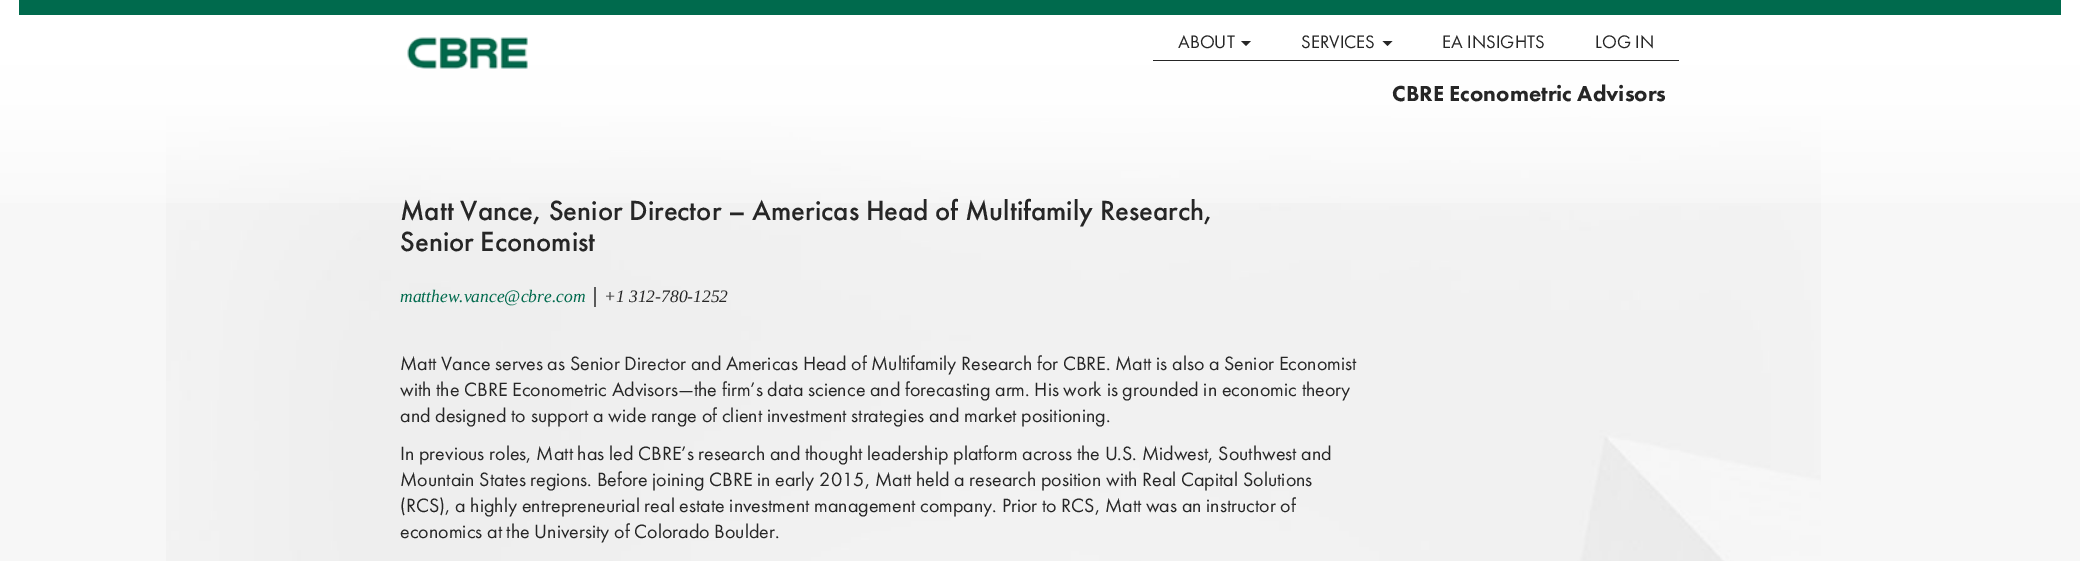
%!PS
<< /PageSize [2080 561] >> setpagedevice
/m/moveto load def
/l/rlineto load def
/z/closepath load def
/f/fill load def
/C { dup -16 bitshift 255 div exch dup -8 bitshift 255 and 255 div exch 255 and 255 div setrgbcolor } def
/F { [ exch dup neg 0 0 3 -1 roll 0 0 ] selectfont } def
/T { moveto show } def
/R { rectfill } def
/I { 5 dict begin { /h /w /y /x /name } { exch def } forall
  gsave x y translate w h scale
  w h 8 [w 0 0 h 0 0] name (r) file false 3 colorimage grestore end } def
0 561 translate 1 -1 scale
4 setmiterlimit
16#F7F7F7 C
0 0 2080 561 R
(1.rgb) 166 116 1655 445 I
(2.rgb) 0 0 2080 203 I
16#006A4D C
19 0 2042 15 R
(3.rgb) 407 37 121 32 I
16#262626 C
1153 60 526 1 R
/FuturaPT-Regular 18.75 F
(ABOUT) 1178 48 T
1241 41 m 10 0 l -5 5 l z f
(SERVICES) 1301 48 T
1382.5 41 m 10 0 l -5 5 l z f
(EA INSIGHTS) 1442 48 T
(LOG IN) 1595 48 T
/FuturaPT-Black 22.5 F
(CBRE Econometric Advisors) 1392 101 T
/FuturaPT-Medium 28.75 F
(Matt Vance, Senior Director – Americas Head of Multifamily Research,) 400 220 T
(Senior Economist) 400 251 T
/LiberationSerif-Italic 17.5 F
16#006A4D C
(matthew.vance@cbre.com) 400 302 T
/FuturaPT-Regular 20 F
16#262626 C
(|) 590 302 T
/LiberationSerif-Italic 17.5 F
(+1 312-780-1252) 604 302 T
/FuturaPT-Regular 20 F
(Matt Vance serves as Senior Director and Americas Head of Multifamily Research for CBRE. Matt is also a Senior Economist) 400 370 T
(with the CBRE Econometric Advisors—the firm’s data science and forecasting arm. His work is grounded in economic theory) 400 396 T
(and designed to support a wide range of client investment strategies and market positioning.) 400 422 T
(In previous roles, Matt has led CBRE’s research and thought leadership platform across the U.S. Midwest, Southwest and) 400 460 T
(Mountain States regions. Before joining CBRE in early 2015, Matt held a research position with Real Capital Solutions) 400 486 T
(\(RCS\), a highly entrepreneurial real estate investment management company. Prior to RCS, Matt was an instructor of) 400 512 T
(economics at the University of Colorado Boulder.) 400 538 T
showpage
